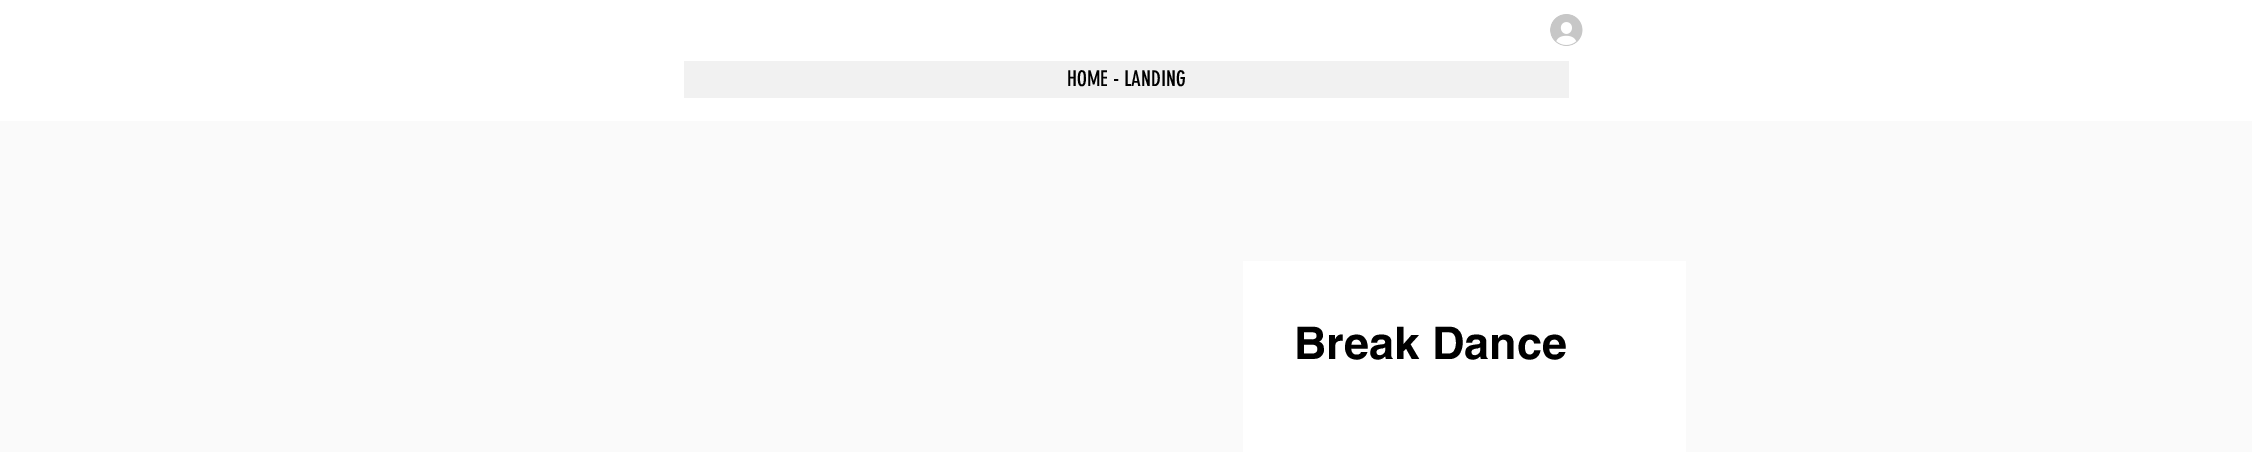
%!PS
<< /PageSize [2252 452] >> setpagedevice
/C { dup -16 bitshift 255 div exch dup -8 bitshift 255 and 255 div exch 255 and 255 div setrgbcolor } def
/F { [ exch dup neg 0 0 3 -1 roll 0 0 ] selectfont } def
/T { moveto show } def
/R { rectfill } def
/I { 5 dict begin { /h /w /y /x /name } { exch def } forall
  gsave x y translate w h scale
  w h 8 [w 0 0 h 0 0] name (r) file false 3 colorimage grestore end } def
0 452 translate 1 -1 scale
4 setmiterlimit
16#FFFFFF C
0 0 2252 452 R
(1.rgb) 1550 14 33 32 I
16#F1F1F1 C
684 61 885 37 R
/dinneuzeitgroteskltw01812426-Regular 21.25 F
16#000000 C
(HOME - LANDING) 1067 86 T
16#FAFAFA C
0 121 2252 331 R
16#FFFFFF C
1243 261 443 191 R
/helvetica-Bold 45 F
16#000000 C
(Break Dance) 1294 359 T
showpage
